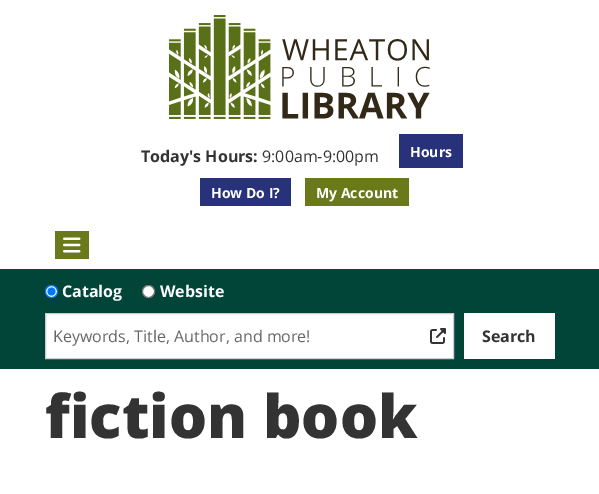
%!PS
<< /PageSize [599 494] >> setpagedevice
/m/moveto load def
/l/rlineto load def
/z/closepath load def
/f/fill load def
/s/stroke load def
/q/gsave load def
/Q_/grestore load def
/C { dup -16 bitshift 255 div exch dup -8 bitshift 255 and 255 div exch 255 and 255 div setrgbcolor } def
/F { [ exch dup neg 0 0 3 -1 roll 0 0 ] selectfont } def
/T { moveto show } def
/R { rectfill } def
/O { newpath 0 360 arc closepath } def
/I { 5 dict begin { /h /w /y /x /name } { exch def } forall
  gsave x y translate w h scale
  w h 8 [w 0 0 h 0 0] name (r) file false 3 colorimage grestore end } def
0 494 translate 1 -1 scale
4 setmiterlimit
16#FFFFFF C
0 0 599 494 R
(1.rgb) 169 15 261 104 I
/OpenSans-Bold 16 F
16#333333 C
(Today's Hours:) 141 162 T
/OpenSans-Regular 16 F
(9:00am-9:00pm) 262 162 T
16#27327B C
399 134 64 34 R
/OpenSans-Bold 14 F
16#FFFFFF C
(Hours) 410 157 T
16#27327B C
200 178 91 28 R
16#FFFFFF C
(How Do I?) 211 198 T
16#6A7A1B C
305 178 104 28 R
16#FFFFFF C
(My Account) 316 198 T
16#6A7A1B C
55 231 34 28 R
(2.rgb) 63 237 18 16 I
16#014538 C
0 269 599 100 R
16#FFFFFF C
51.5 291.5 6 O q f Q_
16#0075FF C
s
51.5 291.5 4 O f
/OpenSans-Bold 16 F
16#FFFFFF C
(Catalog) 62 297 T
148.5 291.5 6 O q f Q_
16#767676 C
s
16#FFFFFF C
(Website) 160 297 T
45.5 313.5 m 408 0 l 0 45 l -408 0 l z q f Q_
16#CCCCCC C
s
/OpenSans-Regular 16 F
16#666666 C
(Keywords, Title, Author, and more!) 53 342 T
(3.rgb) 430 328 16 16 I
16#FFFFFF C
464 313 91 46 R
/OpenSans-Bold 16 F
16#333333 C
(Search) 482 342 T
/OpenSans-ExtraBold 60 F
(fiction book) 45 438 T
showpage
